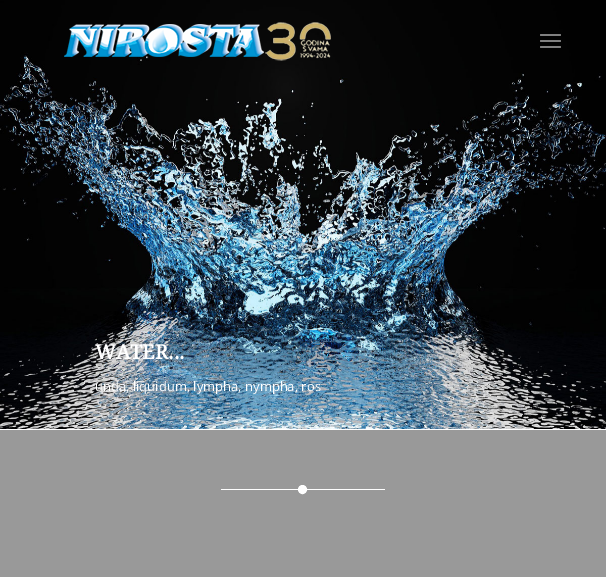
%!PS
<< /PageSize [606 577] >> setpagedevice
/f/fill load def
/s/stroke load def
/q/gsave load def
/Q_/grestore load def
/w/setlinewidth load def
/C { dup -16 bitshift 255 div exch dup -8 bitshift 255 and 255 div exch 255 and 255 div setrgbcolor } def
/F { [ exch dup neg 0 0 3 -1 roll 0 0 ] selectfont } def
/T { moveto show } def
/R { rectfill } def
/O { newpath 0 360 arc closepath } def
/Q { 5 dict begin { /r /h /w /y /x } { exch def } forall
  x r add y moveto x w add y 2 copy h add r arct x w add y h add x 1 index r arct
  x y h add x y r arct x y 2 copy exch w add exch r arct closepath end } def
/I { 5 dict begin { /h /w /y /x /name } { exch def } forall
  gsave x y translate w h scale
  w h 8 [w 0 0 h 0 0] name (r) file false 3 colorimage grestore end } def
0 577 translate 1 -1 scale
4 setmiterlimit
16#999999 C
0 0 606 577 R
(2.rgb) 0 0 606 429 I
(1.rgb) 64 22 267 39 I
16#808080 C
540 40 21 2 1 Q f
540 34 21 2 1 Q f
540 46 21 2 1 Q f
/DroidSerif-Bold 20 F
16#FFFFFF C
(WATER...) 95 359 T
/OpenSans-Regular 13 F
(unda, liquidum, lympha, nympha, ros) 95 391 T
0 429 606 1 R
221 489 164 1 R
302.5 489.5 3.5 O q f Q_
2 w
s
showpage
